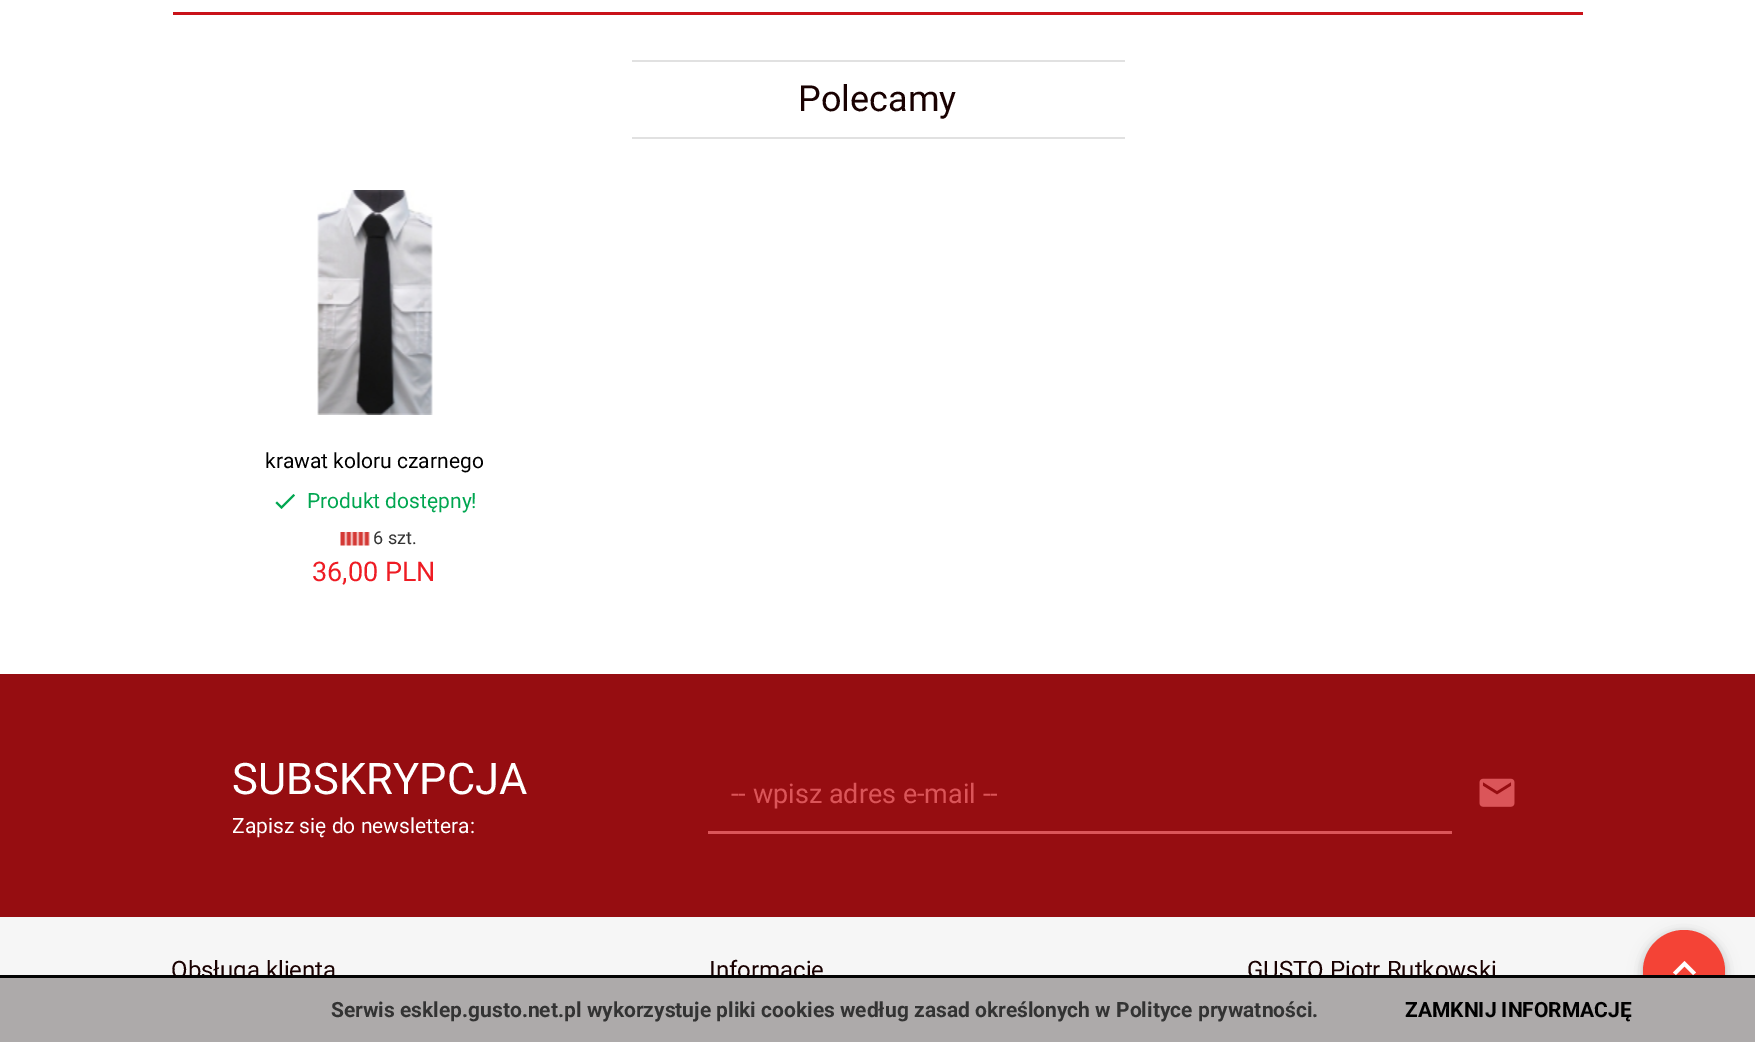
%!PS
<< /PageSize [1755 1042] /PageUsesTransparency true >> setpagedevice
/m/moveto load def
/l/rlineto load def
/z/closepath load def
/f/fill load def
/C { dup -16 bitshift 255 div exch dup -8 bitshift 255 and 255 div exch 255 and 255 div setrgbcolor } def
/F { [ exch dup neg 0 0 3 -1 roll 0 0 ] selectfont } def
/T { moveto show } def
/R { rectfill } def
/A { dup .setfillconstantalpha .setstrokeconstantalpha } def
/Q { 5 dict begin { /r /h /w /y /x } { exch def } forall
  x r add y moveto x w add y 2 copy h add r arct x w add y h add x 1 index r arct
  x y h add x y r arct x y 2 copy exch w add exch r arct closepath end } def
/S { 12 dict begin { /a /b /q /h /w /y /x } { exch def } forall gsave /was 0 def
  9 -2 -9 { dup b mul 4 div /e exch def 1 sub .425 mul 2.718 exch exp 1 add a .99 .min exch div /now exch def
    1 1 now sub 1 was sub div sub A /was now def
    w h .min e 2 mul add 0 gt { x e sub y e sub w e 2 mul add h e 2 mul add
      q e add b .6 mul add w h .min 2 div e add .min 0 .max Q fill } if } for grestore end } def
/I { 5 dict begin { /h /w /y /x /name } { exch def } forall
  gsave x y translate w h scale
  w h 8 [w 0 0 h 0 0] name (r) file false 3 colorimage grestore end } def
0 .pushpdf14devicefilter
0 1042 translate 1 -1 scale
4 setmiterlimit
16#FFFFFF C
0 0 1755 1042 R
16#C91219 C
173 12 1410 3 R
16#E1E1E1 C
632 60 493 2 R
632 137 493 2 R
/Roboto-Regular 36 F
16#190101 C
(Polecamy) 798 111 T
(1.rgb) 317 190 116 225 I
/Roboto-Regular 21 F
16#000000 C
(krawat koloru czarnego) 265 468 T
16#00A650 C
295 495.5 m -13.5 13.5 l -6 -6 l 1.5 -1.5 l 4.5 4.5 l 12 -12 l z f
(Produkt dostępny!) 307 508 T
(2.rgb) 340 532 30 14 I
/Roboto-Regular 18 F
16#333333 C
(6 szt.) 373 544 T
/Roboto-Regular 27 F
16#EE1C24 C
(36,00 PLN) 312 581 T
16#960D11 C
0 674 1755 243 R
/Roboto-Regular 43.5 F
16#FFFFFF C
(SUBSKRYPCJA) 232 794 T
/Roboto-Regular 21 F
(Zapisz się do newslettera:) 232 833 T
16#DB5559 C
708 831 744 3 R
/Roboto-Regular 27 F
(-- wpisz adres e-mail --) 731 803 T
(3.rgb) 1479 778 36 29 I
16#F6F6F6 C
0 917 1755 58 R
/Roboto-Regular 24 F
16#190101 C
(Obsługa klienta) 171 978 T
(Informacje) 709 978 T
(GUSTO Piotr Rutkowski) 1247 978 T
16#000000 C
1643 933 82 83 41 7.5 .12 S
1643 933 82 83 41 4 .16 S
16#F44336 C
1643 930 82 83 41 Q f
16#FFFFFF C
1676 975 m 8.5 -8.5 l 8.5 8.5 l 3 -2.5 l -11.5 -11.5 l -11.5 11.5 l z f
16#ADAAAA C
0 978 1755 64 R
16#030303 C
0 975 1755 3 R
/Roboto-Bold 21 F
16#333333 C
(Serwis esklep.gusto.net.pl wykorzystuje pliki cookies według zasad określonych w Polityce prywatności.) 331 1017 T
16#000000 C
(ZAMKNIJ INFORMACJĘ) 1405 1017 T
.poppdf14devicefilter showpage
